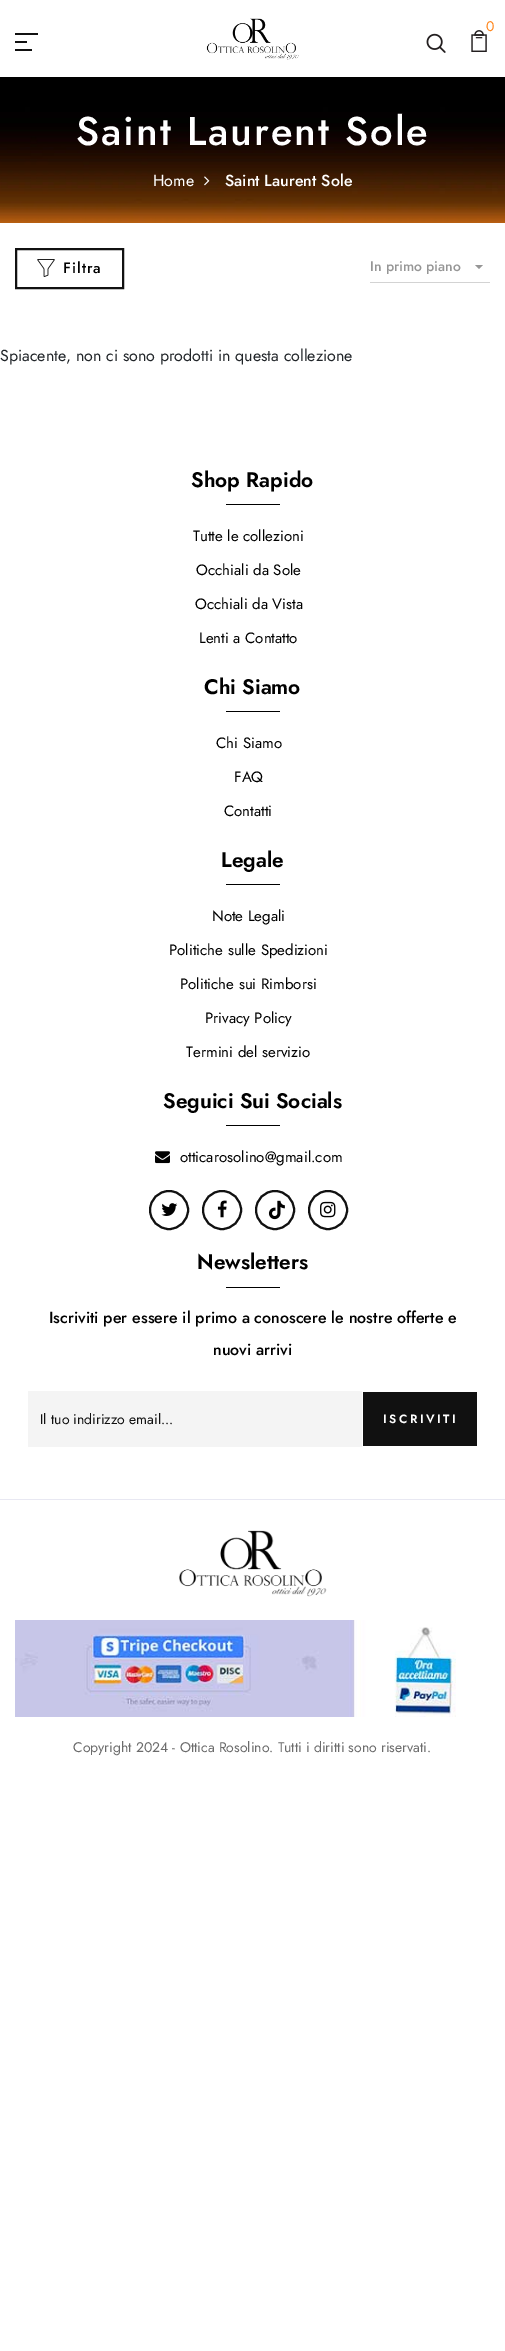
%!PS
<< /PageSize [505 2351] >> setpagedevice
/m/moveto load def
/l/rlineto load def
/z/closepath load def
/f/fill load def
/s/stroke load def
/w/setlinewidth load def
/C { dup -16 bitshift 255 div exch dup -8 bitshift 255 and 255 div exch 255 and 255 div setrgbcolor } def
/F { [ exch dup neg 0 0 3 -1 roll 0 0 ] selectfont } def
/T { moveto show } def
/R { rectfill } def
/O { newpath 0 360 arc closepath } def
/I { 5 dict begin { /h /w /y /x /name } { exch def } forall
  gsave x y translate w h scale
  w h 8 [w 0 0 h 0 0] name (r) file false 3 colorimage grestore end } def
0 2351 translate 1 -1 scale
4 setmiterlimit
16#FFFFFF C
0 0 505 2351 R
(1.rgb) 206 18 93 42 I
(2.rgb) 471 30 16 22 I
/Jost-Regular 14 F
16#FF871D C
(0) 486 31 T
(3.rgb) 426 33 20 20 I
16#111111 C
15 33 23 2 R
15 41 12 2 R
15 49 17 2 R
(4.rgb) 0 77 505 146 I
/Jost-Medium 40 F
16#FFFFFF C
76 145 m 2 0 (Saint Laurent Sole) ashow
/Jost-Regular 16 F
(Home) 153 186 T
(5.rgb) 204 176 6 10 I
/Jost-Medium 16 F
(Saint Laurent Sole) 225 186 T
16#111111 C
2 w
16 249 107 39 rectstroke
(6.rgb) 37 259 18 18 I
/Jost-Medium 15 F
16#000000 C
63 273 m 1 0 (Filtra) ashow
16#D3D3D3 C
370 282 120 1 R
/Jost-Medium 14 F
16#969696 C
(In primo piano) 370 271 T
475 265 m 8 0 l -4 4 l z f
/Jost-Regular 16 F
16#212529 C
(Spiacente, non ci sono prodotti in questa collezione) 0 361 T
/Jost-SemiBold 21 F
16#000000 C
(Shop Rapido) 191 487 T
226 504 54 1 R
/Jost-Regular 15 F
(Tutte le collezioni) 193 541 T
(Occhiali da Sole) 196 575 T
(Occhiali da Vista) 195 609 T
(Lenti a Contatto) 199 643 T
/Jost-SemiBold 21 F
(Chi Siamo) 204 694 T
226 711 54 1 R
/Jost-Regular 15 F
(Chi Siamo) 216 748 T
(FAQ) 234 782 T
(Contatti) 224 816 T
/Jost-SemiBold 21 F
(Legale) 221 867 T
226 884 54 1 R
/Jost-Regular 15 F
(Note Legali) 212 921 T
(Politiche sulle Spedizioni) 169 955 T
(Politiche sui Rimborsi) 180 989 T
(Privacy Policy) 205 1023 T
(Termini del servizio) 186 1057 T
/Jost-SemiBold 21 F
(Seguici Sui Socials) 163 1108 T
226 1125 54 1 R
(7.rgb) 155 1151 15 13 I
/Jost-Regular 15 F
(otticarosolino@gmail.com) 180 1162 T
16#111111 C
169 1210 19 O s
(8.rgb) 161 1203 17 13 I
222 1210 19 O s
(9.rgb) 217 1200 10 18 I
275 1210 19 O s
(10.rgb) 268 1200 17 20 I
328 1210 19 O s
(11.rgb) 320 1201 16 17 I
/Jost-SemiBold 21 F
16#000000 C
(Newsletters) 197 1269 T
226 1287 54 1 R
/Jost-Medium 16 F
(Iscriviti per essere il primo a conoscere le nostre offerte e) 49 1323 T
(nuovi arrivi) 213 1355 T
16#F4F4F4 C
28 1391 334 56 R
/Jost-Regular 14 F
16#111111 C
(Il tuo indirizzo email...) 40 1424 T
363 1392 114 54 R
/Jost-SemiBold 12 F
16#FFFFFF C
383 1423 m 2.5 0 (ISCRIVITI) ashow
16#E8E8F2 C
0 1499 505 1 R
(12.rgb) 179 1530 148 67 I
(13.rgb) 15 1620 441 97 I
/Jost-Regular 14 F
16#6C6C6C C
(Copyright 2024 - Ottica Rosolino. Tutti i diritti sono riservati.) 73 1752 T
showpage
